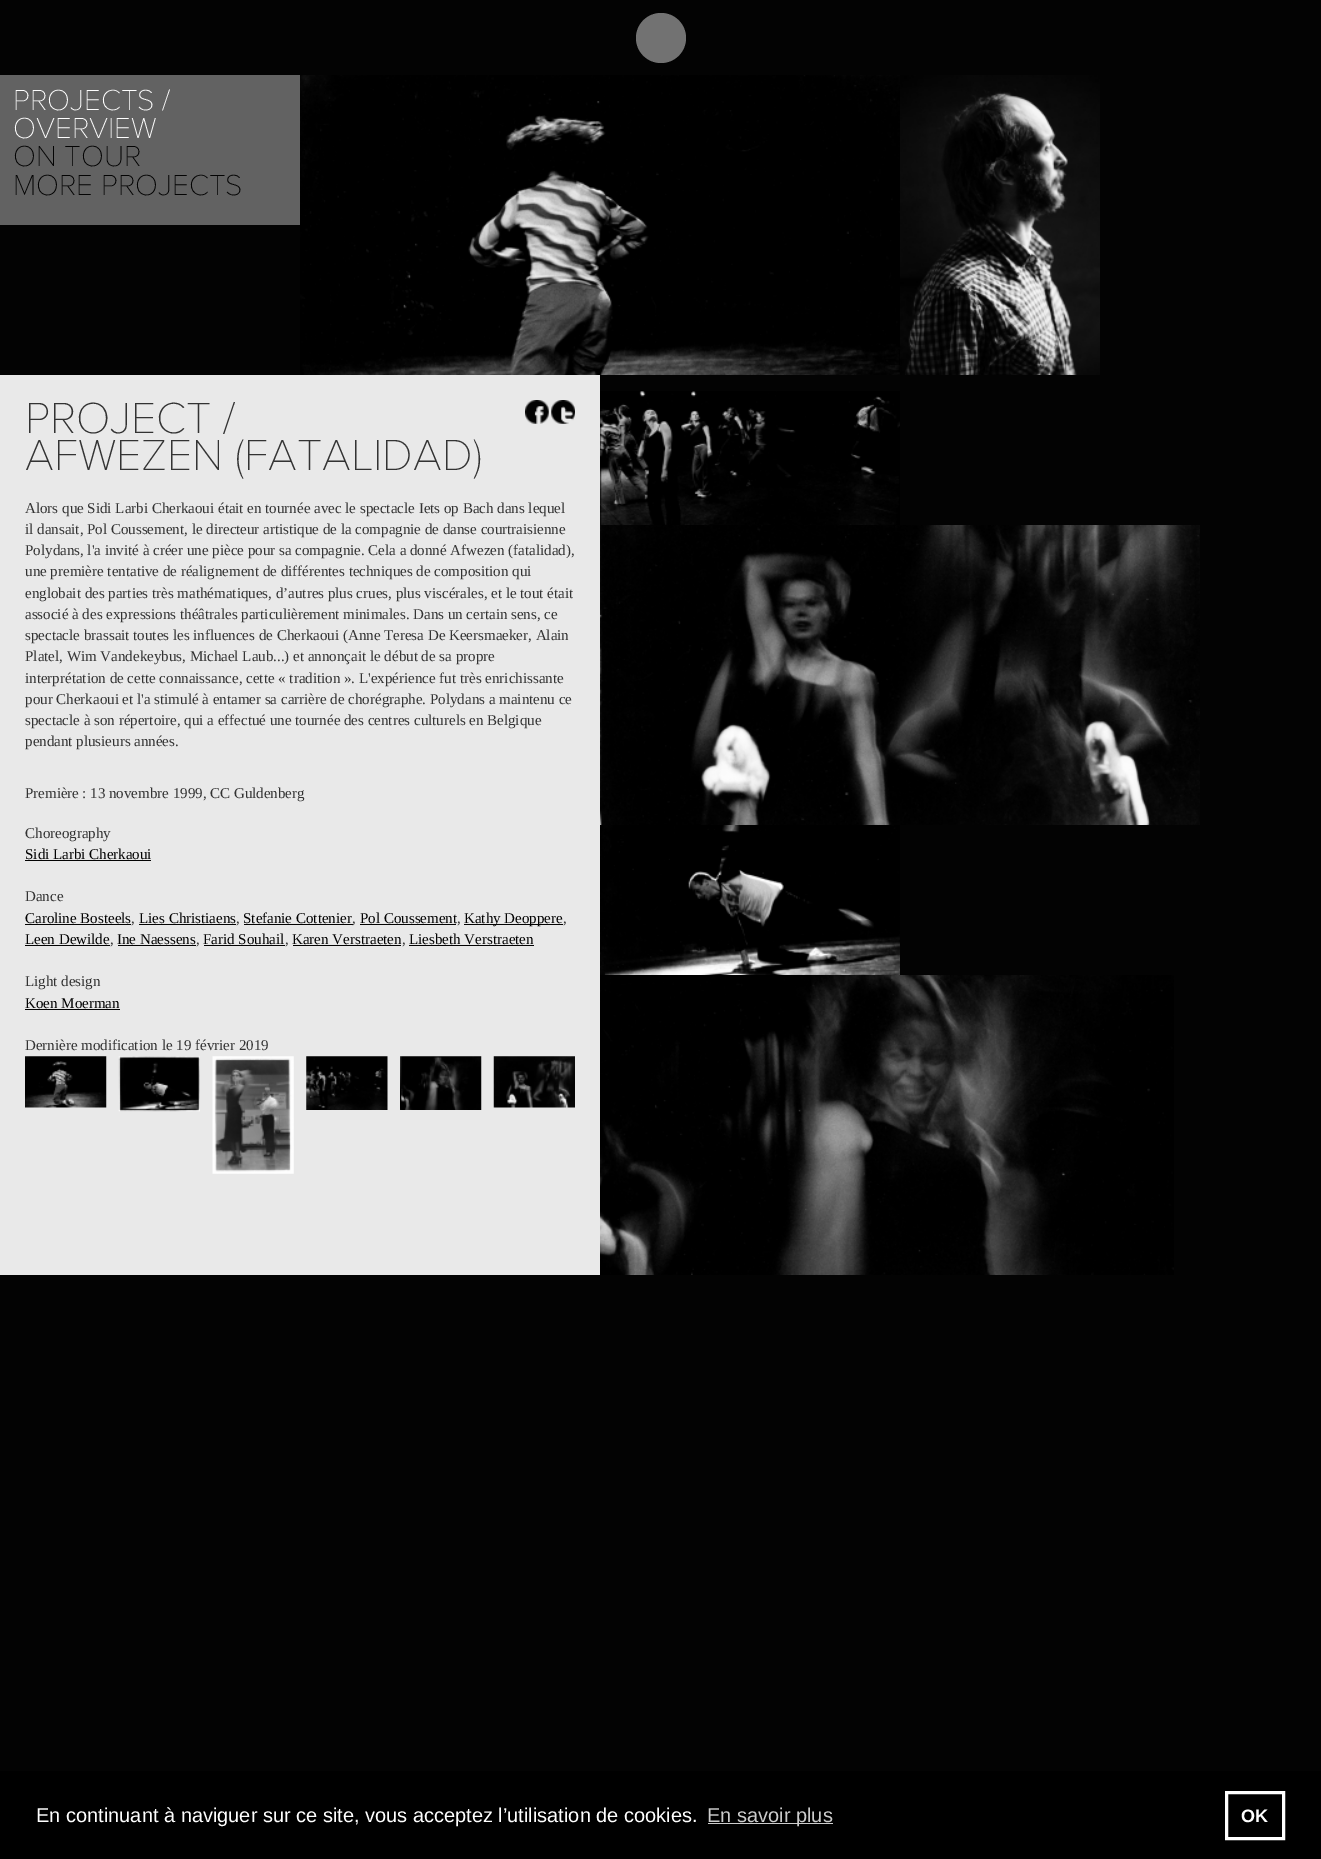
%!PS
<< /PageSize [1321 1859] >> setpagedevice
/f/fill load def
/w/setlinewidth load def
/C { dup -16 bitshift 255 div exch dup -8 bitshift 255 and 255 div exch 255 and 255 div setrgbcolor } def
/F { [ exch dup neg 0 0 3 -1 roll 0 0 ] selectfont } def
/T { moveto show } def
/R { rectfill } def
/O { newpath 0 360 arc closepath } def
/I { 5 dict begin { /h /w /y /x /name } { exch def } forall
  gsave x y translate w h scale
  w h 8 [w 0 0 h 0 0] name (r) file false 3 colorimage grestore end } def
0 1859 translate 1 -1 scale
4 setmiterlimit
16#030303 C
0 0 1321 1859 R
16#727272 C
661 38 25 O f
16#626262 C
0 75 300 150 R
/ProximaNova-Thin 30 F
16#FFFFFF C
(PROJECTS /) 13 110 T
(OVERVIEW) 13 138 T
16#030303 C
(ON TOUR) 13 166 T
(MORE PROJECTS) 13 195 T
(1.rgb) 300 75 600 300 I
(2.rgb) 900 75 200 300 I
16#E9E9E9 C
0 375 600 900 R
/ProximaNova-Thin 45 F
16#333333 C
(PROJECT /) 25 433 T
(AFWEZEN \(FATALIDAD\)) 25 470 T
(3.rgb) 525 400 24 24 I
(4.rgb) 551 400 24 24 I
/LiberationSerif-Regular 15 F
(Alors que Sidi Larbi Cherkaoui était en tournée avec le spectacle Iets op Bach dans lequel) 25 513 T
(il dansait, Pol Coussement, le directeur artistique de la compagnie de danse courtraisienne) 25 534 T
(Polydans, l'a invité à créer une pièce pour sa compagnie. Cela a donné Afwezen \(fatalidad\),) 25 555 T
(une première tentative de réalignement de différentes techniques de composition qui) 25 576 T
(englobait des parties très mathématiques, d’autres plus crues, plus viscérales, et le tout était) 25 598 T
(associé à des expressions théâtrales particulièrement minimales. Dans un certain sens, ce) 25 619 T
(spectacle brassait toutes les influences de Cherkaoui \(Anne Teresa De Keersmaeker, Alain) 25 640 T
(Platel, Wim Vandekeybus, Michael Laub...\) et annonçait le début de sa propre) 25 661 T
(interprétation de cette connaissance, cette « tradition ». L'expérience fut très enrichissante) 25 683 T
(pour Cherkaoui et l'a stimulé à entamer sa carrière de chorégraphe. Polydans a maintenu ce) 25 704 T
(spectacle à son répertoire, qui a effectué une tournée des centres culturels en Belgique) 25 725 T
(pendant plusieurs années.) 25 746 T
(Première : 13 novembre 1999, CC Guldenberg) 25 798 T
(Choreography) 25 838 T
16#030303 C
(Sidi Larbi Cherkaoui) 25 859 T
25 860 126 1 R
16#333333 C
(Dance) 25 901 T
16#030303 C
(Caroline Bosteels) 25 923 T
25 924 106 1 R
16#333333 C
(,) 131 923 T
16#030303 C
(Lies Christiaens) 139 923 T
139 924 97 1 R
16#333333 C
(,) 236 923 T
16#030303 C
(Stefanie Cottenier) 243 923 T
244 924 109 1 R
16#333333 C
(,) 352 923 T
16#030303 C
(Pol Coussement) 360 923 T
360 924 96 1 R
16#333333 C
(,) 457 923 T
16#030303 C
464 924 99 1 R
(Kathy Deoppere) 464 923 T
16#333333 C
(,) 563 923 T
16#030303 C
(Leen Dewilde) 25 944 T
25 945 85 1 R
16#333333 C
(,) 110 944 T
16#030303 C
(Ine Naessens) 117 944 T
118 945 78 1 R
16#333333 C
(,) 196 944 T
16#030303 C
(Farid Souhail) 203 944 T
204 945 81 1 R
16#333333 C
(,) 285 944 T
16#030303 C
(Karen Verstraeten) 292 944 T
293 945 108 1 R
16#333333 C
(,) 402 944 T
16#030303 C
(Liesbeth Verstraeten) 409 944 T
409 945 125 1 R
16#333333 C
(Light design) 25 986 T
16#030303 C
(Koen Moerman) 25 1008 T
25 1009 95 1 R
16#333333 C
(Dernière modification le 19 février 2019) 25 1050 T
(5.rgb) 25 1056 82 52 I
(6.rgb) 118 1056 82 56 I
(7.rgb) 212 1056 82 118 I
(8.rgb) 306 1056 82 54 I
(9.rgb) 400 1056 82 54 I
(10.rgb) 493 1056 82 52 I
(11.rgb) 600 391 300 134 I
(12.rgb) 600 525 600 300 I
(13.rgb) 600 825 300 150 I
(14.rgb) 600 975 574 300 I
16#000000 C
0 1771 1321 88 R
/LiberationSans-Regular 20 F
16#FFFFFF C
(En continuant à naviguer sur ce site, vous acceptez l’utilisation de cookies.) 36 1822 T
16#CCCCCC C
708 1823 125 1 R
(En savoir plus) 707 1822 T
16#FFFFFF C
3 w
1226.5 1792.5 57 46 rectstroke
/LiberationSans-Bold 18 F
(OK) 1241 1822 T
showpage
